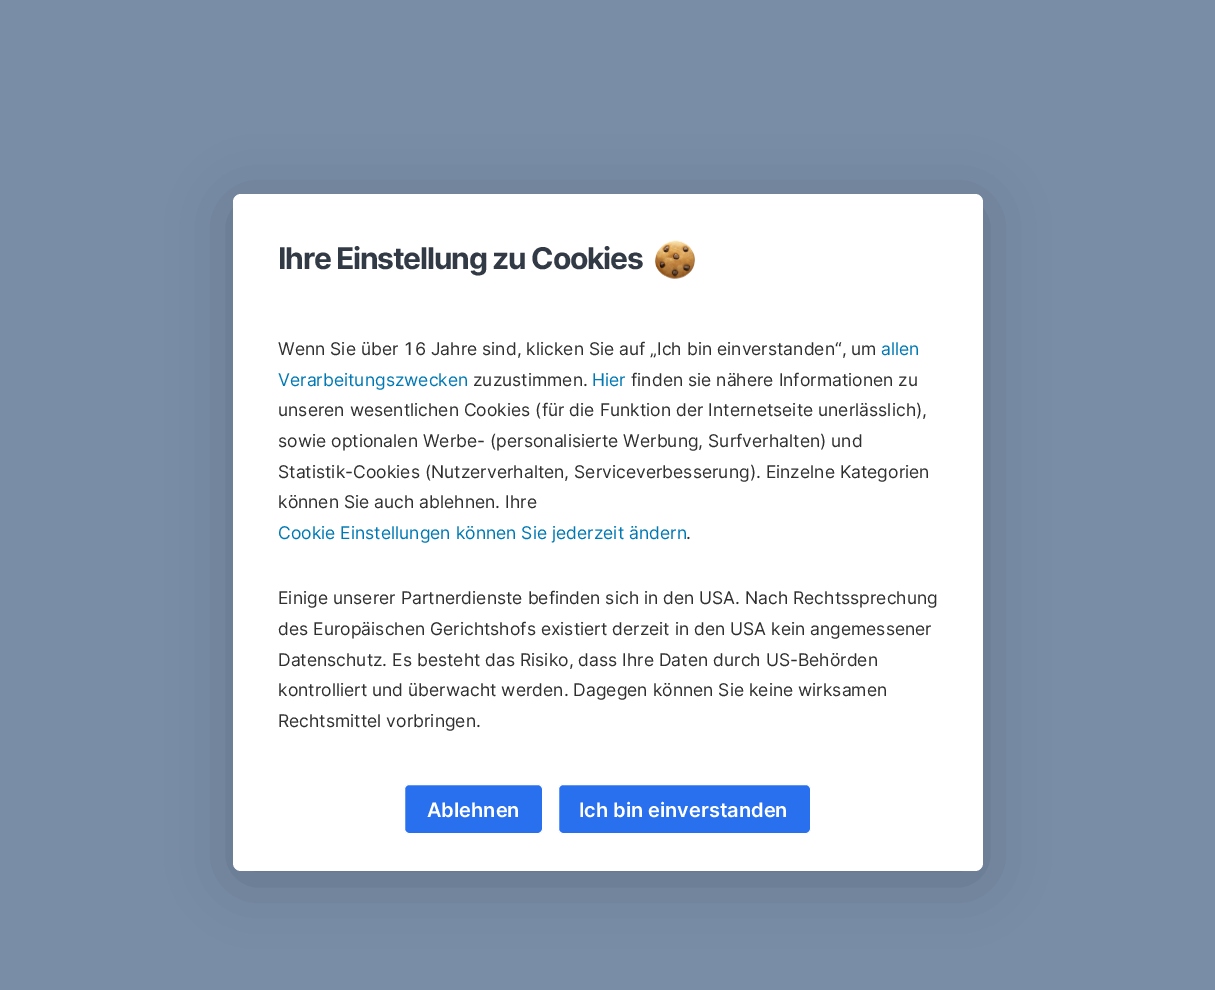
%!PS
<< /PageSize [1215 990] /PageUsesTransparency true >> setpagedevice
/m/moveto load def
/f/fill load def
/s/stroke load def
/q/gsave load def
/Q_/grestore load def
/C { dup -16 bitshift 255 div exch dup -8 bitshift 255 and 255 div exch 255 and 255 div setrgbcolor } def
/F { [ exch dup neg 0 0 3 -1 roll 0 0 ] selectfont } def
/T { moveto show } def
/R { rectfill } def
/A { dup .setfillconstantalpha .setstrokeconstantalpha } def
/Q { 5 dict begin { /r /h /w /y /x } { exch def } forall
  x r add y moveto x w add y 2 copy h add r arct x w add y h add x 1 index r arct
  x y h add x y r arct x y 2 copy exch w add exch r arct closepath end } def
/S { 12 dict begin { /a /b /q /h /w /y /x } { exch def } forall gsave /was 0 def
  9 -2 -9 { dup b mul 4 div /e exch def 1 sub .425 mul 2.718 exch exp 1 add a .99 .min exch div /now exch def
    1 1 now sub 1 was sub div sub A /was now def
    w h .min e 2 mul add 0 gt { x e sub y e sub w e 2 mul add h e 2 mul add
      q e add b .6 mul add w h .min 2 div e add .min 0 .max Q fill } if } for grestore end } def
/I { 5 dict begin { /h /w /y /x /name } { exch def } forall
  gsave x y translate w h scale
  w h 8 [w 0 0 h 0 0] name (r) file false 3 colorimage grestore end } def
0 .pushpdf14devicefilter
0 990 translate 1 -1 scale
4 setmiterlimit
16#7A8DA7 C
0 0 1215 990 R
16#000000 C
233 203 750 677 8 31 .2 S
16#FFFFFF C
233 194 750 677 8 Q f
/Inter-Bold 30 F
16#313A45 C
278 269 m -1.25 0 (Ihre Einstellung zu Cookies) ashow
(1.rgb) 655 240 40 39 I
/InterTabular-Regular 17.5 F
16#303030 C
(Wenn Sie über 16 Jahre sind, klicken Sie auf „Ich bin einverstanden“, um) 278 355 T
/Inter-Regular 17.5 F
16#0078B4 C
(allen) 881 355 T
(Verarbeitungszwecken) 278 386 T
16#303030 C
(zuzustimmen.) 473 386 T
16#0078B4 C
(Hier) 592 386 T
16#303030 C
(finden sie nähere Informationen zu) 631 386 T
(unseren wesentlichen Cookies \(für die Funktion der Internetseite unerlässlich\),) 278 416 T
(sowie optionalen Werbe- \(personalisierte Werbung, Surfverhalten\) und) 278 447 T
(Statistik-Cookies \(Nutzerverhalten, Serviceverbesserung\). Einzelne Kategorien) 278 478 T
(können Sie auch ablehnen. Ihre) 278 508 T
16#0078B4 C
(Cookie Einstellungen können Sie jederzeit ändern) 278 539 T
16#303030 C
(.) 686 539 T
(Einige unserer Partnerdienste befinden sich in den USA. Nach Rechtssprechung) 278 604 T
(des Europäischen Gerichtshofs existiert derzeit in den USA kein angemessener) 278 635 T
(Datenschutz. Es besteht das Risiko, dass Ihre Daten durch US-Behörden) 278 666 T
(kontrolliert und überwacht werden. Dagegen können Sie keine wirksamen) 278 696 T
(Rechtsmittel vorbringen.) 278 727 T
16#2870ED C
404.5 784.5 138 49 4.5 Q q f Q_
16#FFFFFF C
s
/Inter-SemiBold 20 F
(Ablehnen) 427 817 T
16#2870ED C
558.5 784.5 252 49 4.5 Q q f Q_
16#FFFFFF C
s
(Ich bin einverstanden) 579 817 T
.poppdf14devicefilter showpage
